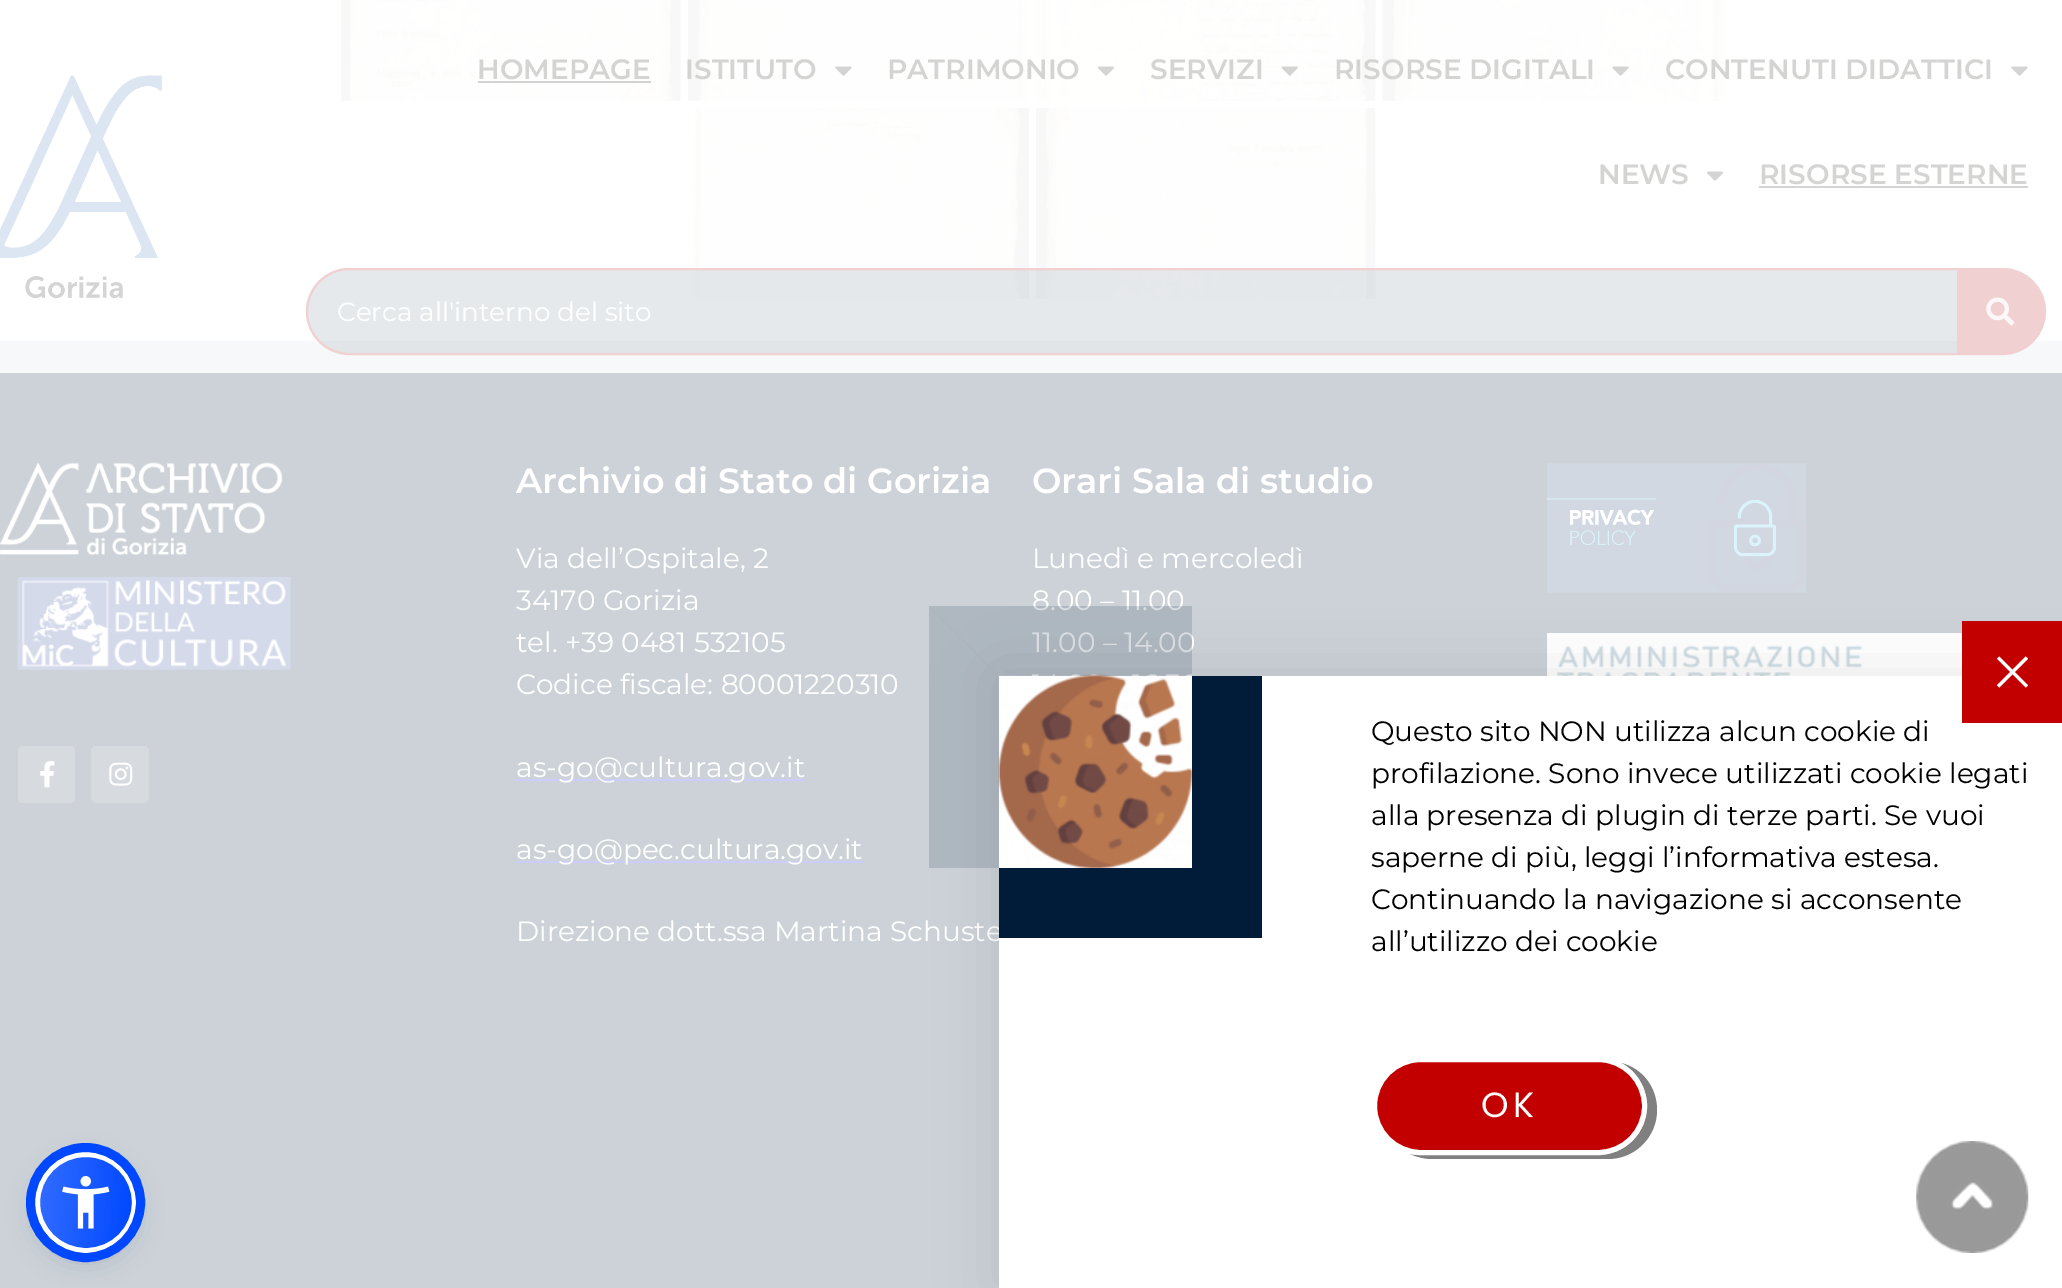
%!PS
<< /PageSize [2062 1288] /PageUsesTransparency true >> setpagedevice
/m/moveto load def
/l/rlineto load def
/c/rcurveto load def
/z/closepath load def
/f/fill load def
/s/stroke load def
/q/gsave load def
/Q_/grestore load def
/w/setlinewidth load def
/C { dup -16 bitshift 255 div exch dup -8 bitshift 255 and 255 div exch 255 and 255 div setrgbcolor } def
/F { [ exch dup neg 0 0 3 -1 roll 0 0 ] selectfont } def
/T { moveto show } def
/R { rectfill } def
/A { dup .setfillconstantalpha .setstrokeconstantalpha } def
/O { newpath 0 360 arc closepath } def
/Q { 5 dict begin { /r /h /w /y /x } { exch def } forall
  x r add y moveto x w add y 2 copy h add r arct x w add y h add x 1 index r arct
  x y h add x y r arct x y 2 copy exch w add exch r arct closepath end } def
/S { 12 dict begin { /a /b /q /h /w /y /x } { exch def } forall gsave /was 0 def
  9 -2 -9 { dup b mul 4 div /e exch def 1 sub .425 mul 2.718 exch exp 1 add a .99 .min exch div /now exch def
    1 1 now sub 1 was sub div sub A /was now def
    w h .min e 2 mul add 0 gt { x e sub y e sub w e 2 mul add h e 2 mul add
      q e add b .6 mul add w h .min 2 div e add .min 0 .max Q fill } if } for grestore end } def
/I { 5 dict begin { /h /w /y /x /name } { exch def } forall
  gsave x y translate w h scale
  w h 8 [w 0 0 h 0 0] name (r) file false 3 colorimage grestore end } def
0 .pushpdf14devicefilter
0 1288 translate 1 -1 scale
4 setmiterlimit
16#FFFFFF C
0 0 2062 1288 R
(1.rgb) 341 0 340 101 I
(2.rgb) 687 0 342 101 I
(3.rgb) 1036 0 340 101 I
(4.rgb) 1382 0 342 101 I
(5.rgb) 687 108 342 191 I
(6.rgb) 1036 108 340 191 I
(7.rgb) 0 75 162 224 I
/Montserrat-SemiBold 28 F
16#D4D4D3 C
(HOMEPAGE) 477 79 T
0.85 A
16#CCCCCC C
478 81 173 2 R
1 A
16#D4D4D3 C
(ISTITUTO) 685 79 T
(8.rgb) 835 66 17 10 I
(PATRIMONIO) 887 79 T
(9.rgb) 1097 66 18 10 I
(SERVIZI) 1150 79 T
(10.rgb) 1281 66 17 10 I
(RISORSE DIGITALI) 1334 79 T
(11.rgb) 1612 66 17 10 I
(CONTENUTI DIDATTICI) 1665 79 T
(12.rgb) 2011 66 17 10 I
(NEWS) 1598 184 T
(13.rgb) 1706 171 18 10 I
(RISORSE ESTERNE) 1759 184 T
16#D4D4D4 C
1759 186 269 2 R
16#F7F8F9 C
0 341 2062 32 R
0.49 A
16#CCD2D7 C
306 268 1740 87 43.5 Q f
0.85 A
16#F3CCCC C
2 w
307 269 1738 85 42.5 Q s
/Montserrat-Regular 26.25 F
1 A
16#FFFFFF C
(Cerca all'interno del sito) 337 321 T
0.85 A
16#F3CCCC C
1957 270 m 45 0 l 23 0 42 19 42 42 c 0 23 -19 42 -42 42 c -45 0 l z f
1 A
(14.rgb) 1986 297 29 29 I
16#CCD2D7 C
0 373 2062 915 R
(15.rgb) 0 462 283 93 I
(16.rgb) 17 577 274 93 I
16#D7DBE0 C
18 746 57 57 5 Q f
(17.rgb) 40 761 15 27 I
91 746 58 57 5 Q f
(18.rgb) 109 762 24 24 I
/Montserrat-SemiBold 35 F
16#FFFFFF C
(Archivio di Stato di Gorizia) 516 493 T
/Montserrat-Regular 28 F
(Via dell’Ospitale, 2) 516 568 T
(34170 Gorizia) 516 610 T
(tel. +39 0481 532105) 516 652 T
(Codice fiscale: 80001220310) 516 694 T
16#CCCCFF C
516 779 289 2 R
16#FFFFFF C
(as-go@cultura.gov.it) 516 777 T
16#CCCCFF C
516 861 347 2 R
16#FFFFFF C
(as-go@pec.cultura.gov.it) 516 859 T
(Direzione dott.ssa Martina Schuste) 516 941 T
/Montserrat-SemiBold 35 F
(Orari Sala di studio) 1032 493 T
/Montserrat-Regular 28 F
(Lunedì e mercoledì) 1032 568 T
(8.00 – 11.00) 1032 610 T
(11.00 – 14.00) 1032 652 T
(19.rgb) 1547 463 259 130 I
(20.rgb) 1547 633 415 43 I
16#000000 C
999 676 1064 612 0 30.5 .1 S
16#FFFFFF C
999 676 1063 612 R
16#C30000 C
1962 621 100 102 R
(21.rgb) 1997 656 31 32 I
16#001C38 C
999 868 m 0 70 l 263 0 l 0 -262 l -70 0 l 0 192 l z f
0.14 A
929 606 m 263 0 l 0 70 l -193 0 l z f
929 868 m 0 -262 l 70 70 l 0 192 l z f
1 A
(22.rgb) 998 674 194 194 I
16#000000 C
(Questo sito NON utilizza alcun cookie di) 1371 741 T
(profilazione. Sono invece utilizzati cookie legati) 1371 783 T
(alla presenza di plugin di terze parti. Se vuoi) 1371 825 T
(saperne di più, leggi l’informativa estesa.) 1371 867 T
(Continuando la navigazione si acconsente) 1371 909 T
(all’utilizzo dei cookie) 1371 951 T
16#808080 C
1410 1154 m 7 3 14 5 22 5 c 176 0 l 27 0 49 -22 49 -49 c 0 -23 -15 -42 -36 -47 c 15 8 26 24 26 43 c 0 27 -22 49 -49 49 c -177 0 l -4 0 -8 0 -11 -1 c z f
16#C30000 C
1374.5 1059.5 270 93 46.5 Q q f Q_
16#FFFFFF C
5 w
s
/Poppins-Regular 35 F
1481 1117 m 4 0 (OK) ashow
16#5D6494 C
35 1155 102 102 51 3.5 .2 S
16#252C61 C
35 1160 102 102 51 13 .15 S
q
35 1152 102 101 50.5 Q clip newpath
q 40 1157 m 91 0 l 0 91 l -91 0 l z clip newpath
<< /ShadingType 2 /ColorSpace /DeviceRGB /Coords [36 1197 135 1207] /Extend [true true] /Function << /FunctionType 2 /Domain [0 1] /C0 [.196 .424 1] /C1 [0 .282 1] /N 1 >> >> shfill Q_
q 131 1180 m 5 0 l 0 45 l -5 0 l z clip newpath
<< /ShadingType 2 /ColorSpace /DeviceRGB /Coords [127 1197 226 1207] /Extend [true true] /Function << /FunctionType 2 /Domain [0 1] /C0 [.196 .424 1] /C1 [0 .282 1] /N 1 >> >> shfill Q_
Q_
16#FFFFFF C
37.5 1154.5 97 96 48 Q s
16#0048FF C
9 w
85.5 1202.5 55 O s
(23.rgb) 62 1176 48 53 I
(24.rgb) 1916 1141 113 112 I
.poppdf14devicefilter showpage
